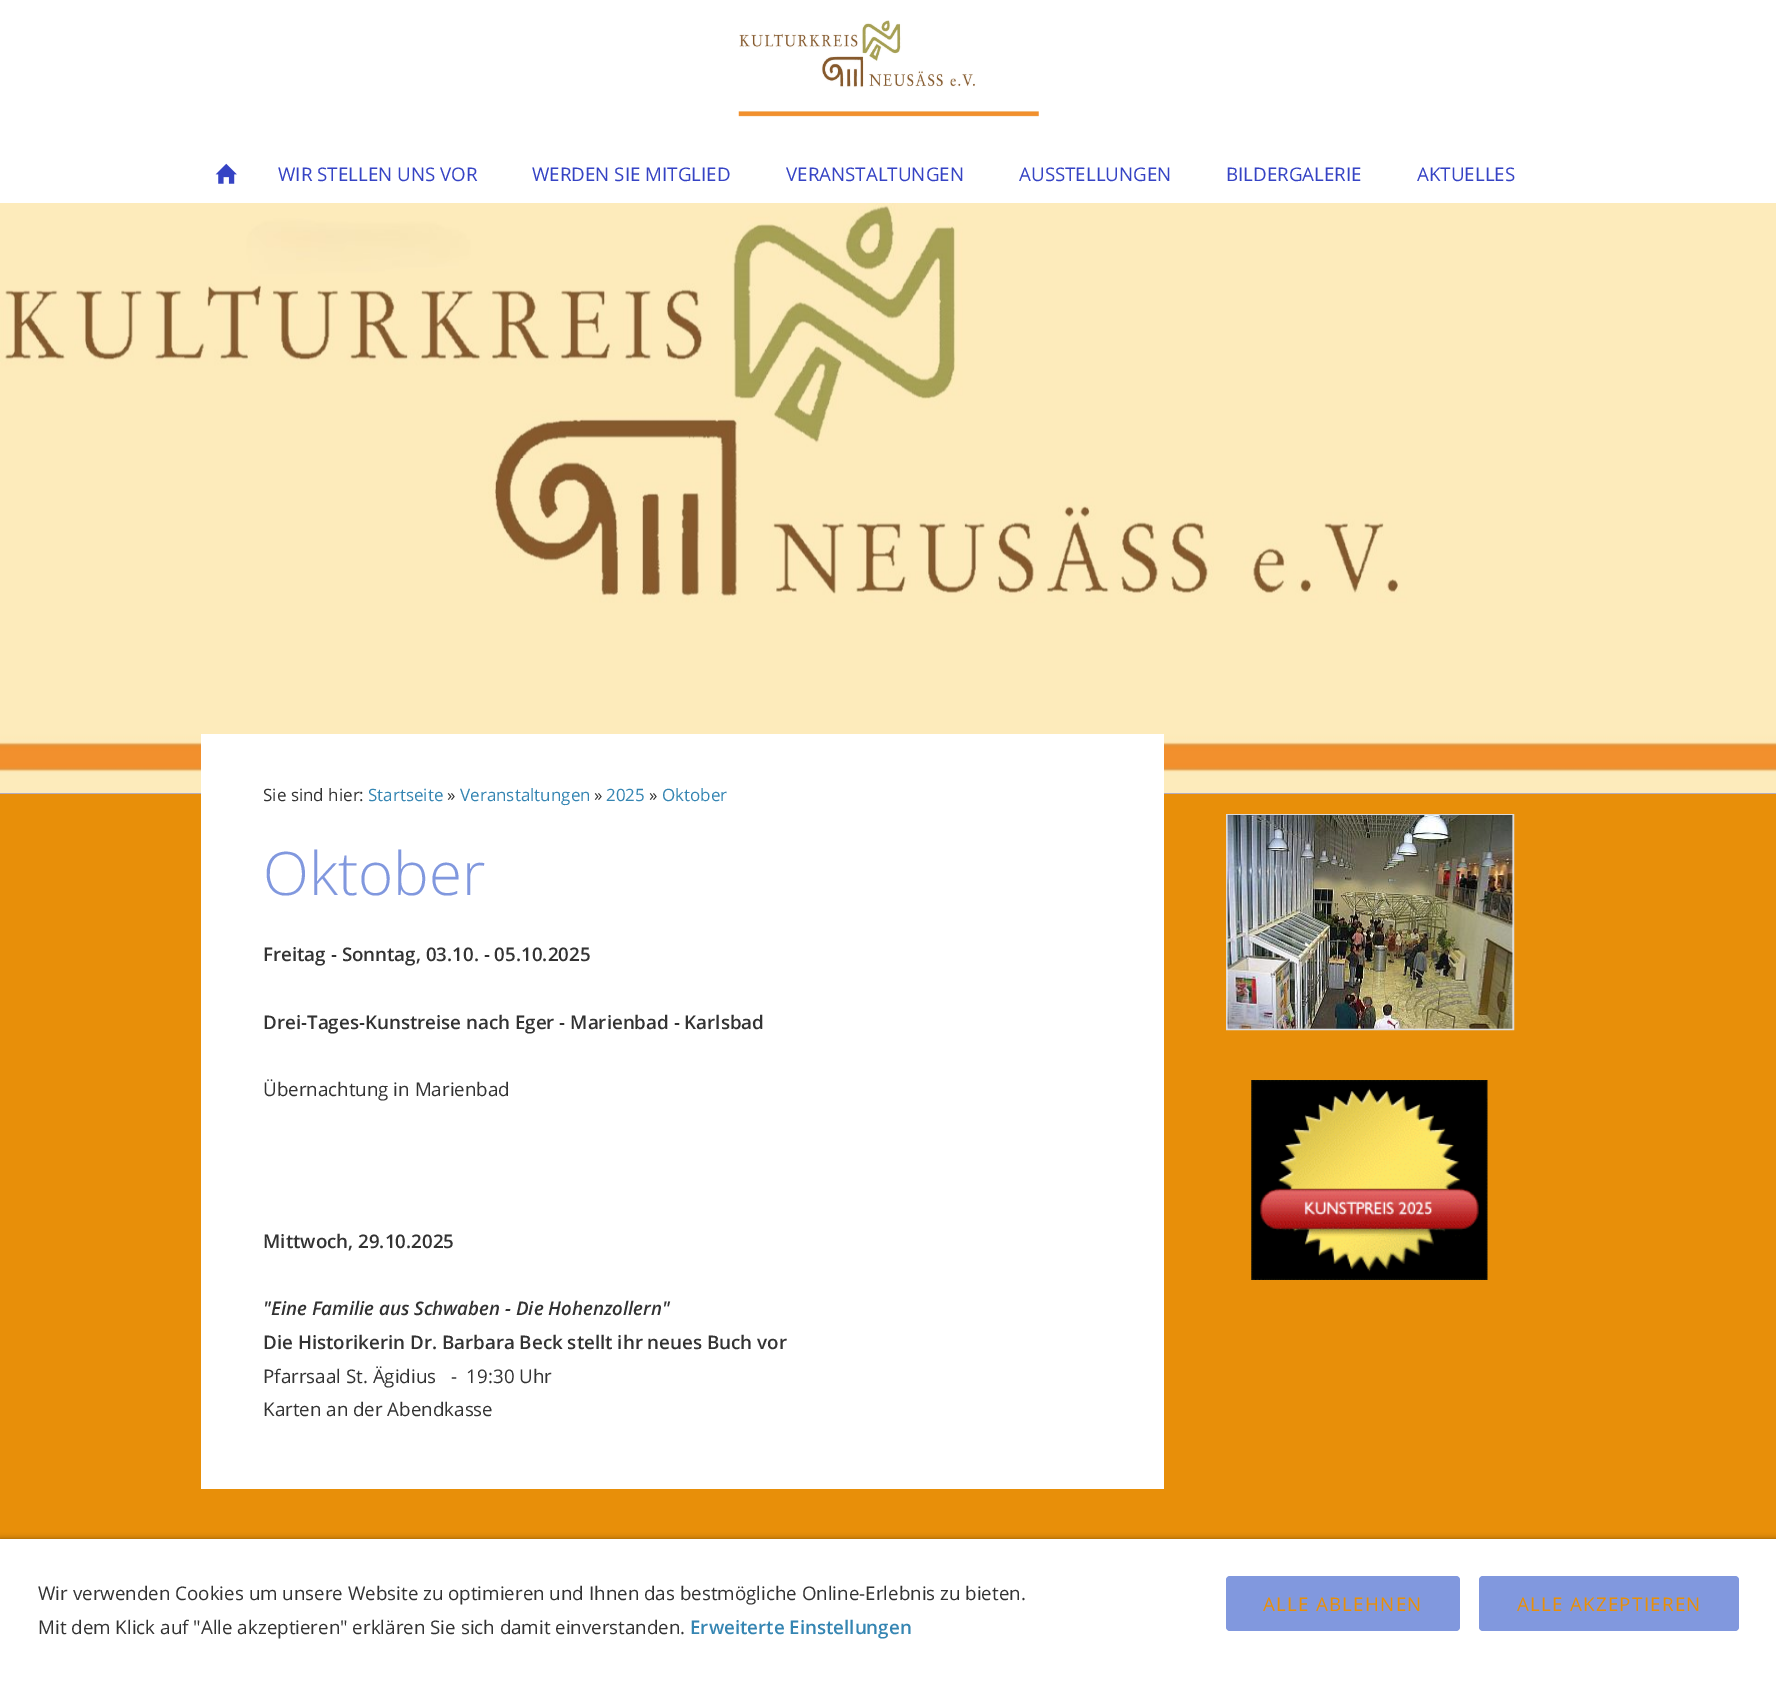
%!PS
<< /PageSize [1776 1681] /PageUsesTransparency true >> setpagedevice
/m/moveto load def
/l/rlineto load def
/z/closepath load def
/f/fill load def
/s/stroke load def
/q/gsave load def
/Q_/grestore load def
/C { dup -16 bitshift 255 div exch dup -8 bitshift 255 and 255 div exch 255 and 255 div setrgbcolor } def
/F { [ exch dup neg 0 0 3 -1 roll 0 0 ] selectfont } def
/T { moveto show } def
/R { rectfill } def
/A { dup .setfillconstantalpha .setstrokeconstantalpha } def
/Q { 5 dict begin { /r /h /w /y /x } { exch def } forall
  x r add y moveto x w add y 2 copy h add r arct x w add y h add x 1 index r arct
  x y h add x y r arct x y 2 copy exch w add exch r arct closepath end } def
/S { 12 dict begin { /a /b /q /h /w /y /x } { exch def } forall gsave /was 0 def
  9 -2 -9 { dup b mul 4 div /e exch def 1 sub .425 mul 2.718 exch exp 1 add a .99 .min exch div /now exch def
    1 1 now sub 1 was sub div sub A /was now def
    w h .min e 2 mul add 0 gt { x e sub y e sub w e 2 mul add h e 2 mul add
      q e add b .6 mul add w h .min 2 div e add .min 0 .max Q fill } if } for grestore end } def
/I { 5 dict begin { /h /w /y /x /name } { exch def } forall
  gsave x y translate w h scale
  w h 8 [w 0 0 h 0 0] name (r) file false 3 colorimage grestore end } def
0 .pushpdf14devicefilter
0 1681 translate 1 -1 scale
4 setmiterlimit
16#E88F09 C
0 0 1776 1681 R
16#FFFFFF C
0 0 1776 203 R
(1.rgb) 738 20 301 97 I
(2.rgb) 215 163 22 21 I
/OpenSans-Regular 18.75 F
16#3543C4 C
(WIR STELLEN UNS VOR) 278 181 T
(WERDEN SIE MITGLIED) 532 181 T
(VERANSTALTUNGEN) 786 181 T
(AUSSTELLUNGEN) 1019 181 T
(BILDERGALERIE) 1226 181 T
(AKTUELLES) 1417 181 T
0 793 1776 1 R
(3.rgb) 0 203 1776 591 I
16#FFFFFF C
201 734 963 755 R
/OpenSans-Regular 17 F
16#333333 C
(Sie sind hier:) 263 801 T
16#3585B2 C
(Startseite) 368 801 T
16#333333 C
(») 447 801 T
16#3585B2 C
(Veranstaltungen) 460 801 T
16#333333 C
(») 594 801 T
16#3585B2 C
(2025) 606 801 T
16#333333 C
(») 649 801 T
16#3585B2 C
(Oktober) 662 801 T
/OpenSans-Light 60 F
16#8198DE C
(Oktober) 263 895 T
/OpenSans-SemiBold 18.75 F
16#333333 C
(Freitag - Sonntag, 03.10. - 05.10.2025) 263 961 T
(Drei-Tages-Kunstreise nach Eger - Marienbad - Karlsbad) 263 1029 T
/OpenSans-Regular 18.75 F
(Übernachtung in Marienbad) 263 1096 T
/OpenSans-SemiBold 18.75 F
(Mittwoch, 29.10.2025) 263 1248 T
/OpenSans-SemiBoldItalic 18.75 F
("Eine Familie aus Schwaben - Die Hohenzollern") 263 1315 T
/OpenSans-SemiBold 18.75 F
(Die Historikerin Dr. Barbara Beck stellt ihr neues Buch vor) 263 1349 T
/OpenSans-Regular 18.75 F
(Pfarrsaal St. Ägidius   -  19:30 Uhr) 263 1383 T
(Karten an der Abendkasse) 263 1416 T
16#FFFFFF C
1226.5 814.5 m 287 0 l 0 215 l -287 0 l z q f Q_
16#DDDDDD C
s
(4.rgb) 1227 815 286 214 I
(5.rgb) 1251 1080 237 200 I
16#000000 C
0 1539 1776 142 0 3 .4 S
16#FFFFFF C
0 1539 1776 142 R
16#333333 C
(Wir verwenden Cookies um unsere Website zu optimieren und Ihnen das bestmögliche Online-Erlebnis zu bieten.) 38 1600 T
(Mit dem Klick auf "Alle akzeptieren" erklären Sie sich damit einverstanden.) 38 1634 T
/OpenSans-SemiBold 18.75 F
16#3585B2 C
(Erweiterte Einstellungen) 690 1634 T
16#8198DE C
1226 1576 234 55 4 Q f
/OpenSans-Regular 18.75 F
16#E88F09 C
1263 1611 m 1.25 0 (ALLE ABLEHNEN) ashow
16#8198DE C
1479 1576 260 55 4 Q f
16#E88F09 C
1517 1611 m 1.25 0 (ALLE AKZEPTIEREN) ashow
.poppdf14devicefilter showpage
